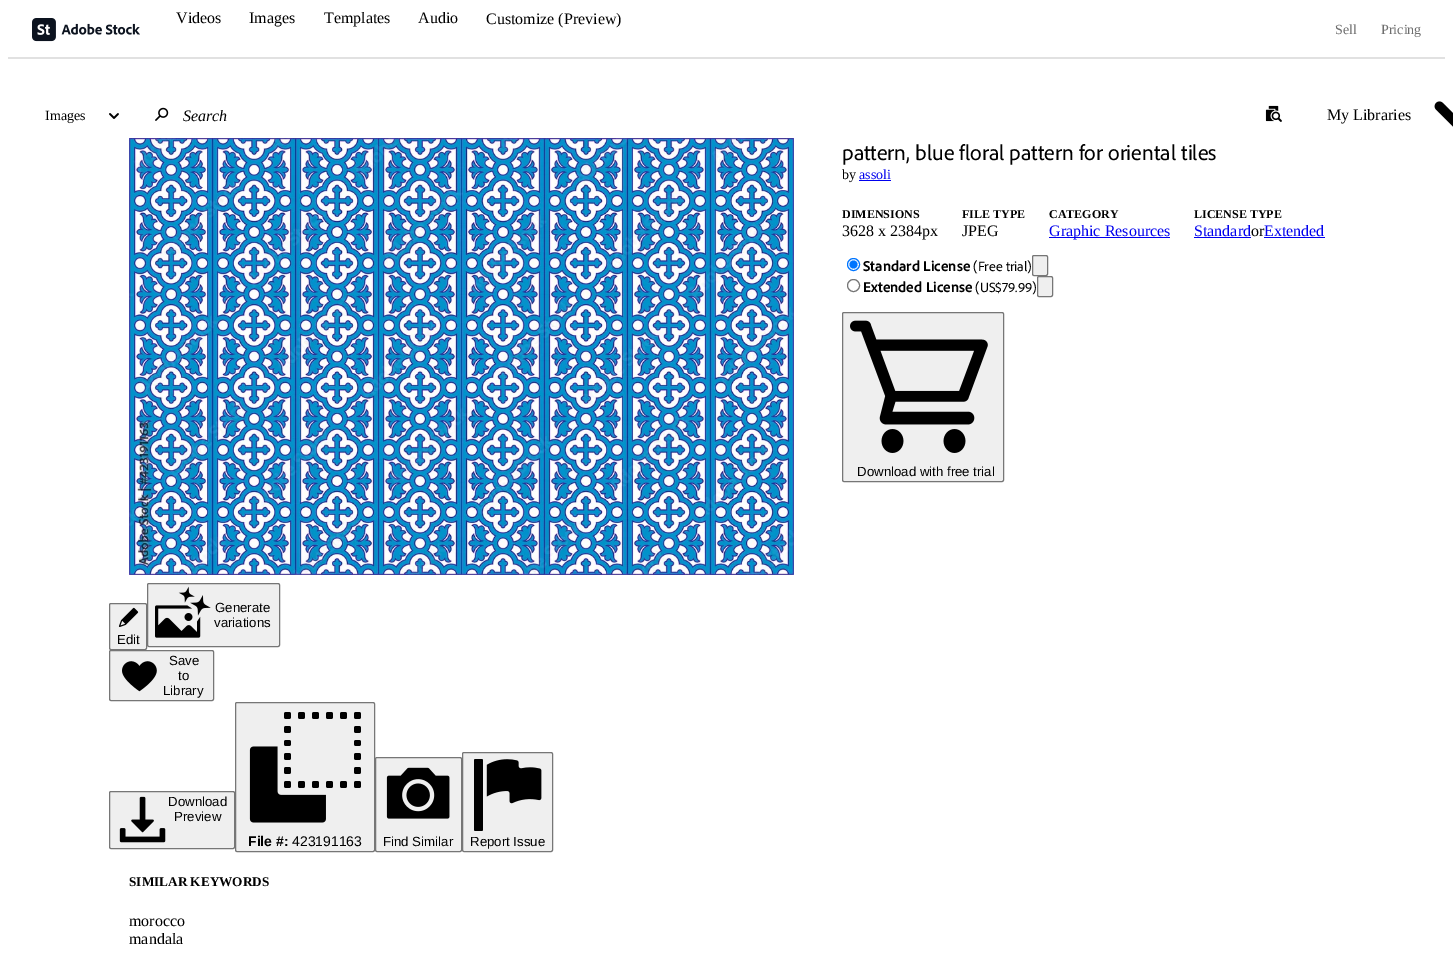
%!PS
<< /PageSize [1453 980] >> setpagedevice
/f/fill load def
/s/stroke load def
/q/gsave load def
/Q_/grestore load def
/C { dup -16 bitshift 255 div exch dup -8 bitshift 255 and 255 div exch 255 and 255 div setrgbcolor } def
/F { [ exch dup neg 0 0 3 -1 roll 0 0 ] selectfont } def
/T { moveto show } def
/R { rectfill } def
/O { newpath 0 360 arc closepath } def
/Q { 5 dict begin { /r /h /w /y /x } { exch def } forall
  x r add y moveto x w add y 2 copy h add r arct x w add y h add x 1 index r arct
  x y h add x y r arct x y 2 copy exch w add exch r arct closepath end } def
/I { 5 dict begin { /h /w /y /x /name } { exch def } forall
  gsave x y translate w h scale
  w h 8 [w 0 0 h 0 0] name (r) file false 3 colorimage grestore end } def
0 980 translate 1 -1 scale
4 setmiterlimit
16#FFFFFF C
0 0 1453 980 R
16#E1E1E1 C
8 57 1437 2 R
(1.rgb) 32 18 108 24 I
/LiberationSerif-Regular 16 F
16#000000 C
(Videos) 176 23 T
(Images) 249 23 T
(Templates) 324 23 T
(Audio) 418 23 T
(Customize \(Preview\)) 486 24 T
/LiberationSerif-Regular 14 F
16#6E6E6E C
(Sell) 1335 34 T
(Pricing) 1381 34 T
16#000000 C
(Images) 45 120 T
(2.rgb) 109 113 10 6 I
(3.rgb) 155 107 14 14 I
/LiberationSerif-Italic 16 F
(Search) 183 121 T
(4.rgb) 1265 105 17 17 I
/LiberationSerif-Regular 16 F
(My Libraries) 1327 120 T
(5.rgb) 1434 101 19 26 I
/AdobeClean-Regular 22 F
(pattern, blue floral pattern for oriental tiles) 842 160 T
/LiberationSerif-Regular 14 F
(by) 842 179 T
16#0000EE C
(assoli) 859 179 T
859 180 32 1 R
/LiberationSerif-Bold 12 F
16#000000 C
(DIMENSIONS) 842 218 T
/LiberationSerif-Regular 16 F
(3628 x 2384px) 842 236 T
/LiberationSerif-Bold 12 F
(FILE TYPE) 962 218 T
/LiberationSerif-Regular 16 F
(JPEG) 962 236 T
/LiberationSerif-Bold 12 F
(CATEGORY) 1049 218 T
16#0000EE C
1049 237 121 1 R
/LiberationSerif-Regular 16 F
(Graphic Resources) 1049 236 T
/LiberationSerif-Bold 12 F
16#000000 C
(LICENSE TYPE) 1194 218 T
/LiberationSerif-Regular 16 F
16#0000EE C
(Standard) 1194 236 T
16#000000 C
(or) 1251 236 T
16#0000EE C
1194 237 57 1 R
1264 237 61 1 R
(Extended) 1264 236 T
16#0075FF C
853.5 264.5 6 O s
853.5 264.5 4 O f
/AdobeClean-Bold 15 F
16#000000 C
(Standard License) 863 271 T
/AdobeClean-Regular 14 F
(\(Free trial\)) 973 271 T
16#EFEFEF C
1032.5 255.5 15 20 1.5 Q q f Q_
16#767676 C
s
853.5 285.5 6 O s
/AdobeClean-Bold 15 F
16#000000 C
(Extended License) 863 292 T
/AdobeClean-Regular 14 F
(\(US$79.99\)) 975 292 T
16#EFEFEF C
1037.5 276.5 15 20 1.5 Q q f Q_
16#767676 C
s
16#EFEFEF C
842.5 312.5 161 169 1.5 Q q f Q_
16#767676 C
s
(6.rgb) 850 320 138 133 I
/LiberationSans-Regular 13.25 F
16#000000 C
(Download with free trial) 857 476 T
(7.rgb) 129 138 665 437 I
16#EFEFEF C
147.5 583.5 132 63 1.5 Q q f Q_
16#767676 C
s
(8.rgb) 155 586 56 52 I
16#000000 C
(Generate) 215 612 T
(variations) 214 627 T
16#EFEFEF C
109.5 603.5 37 46 1.5 Q q f Q_
16#767676 C
s
(9.rgb) 118 607 21 20 I
16#000000 C
(Edit) 117 644 T
16#EFEFEF C
109.5 650.5 104 50 1.5 Q q f Q_
16#767676 C
s
(10.rgb) 122 661 35 31 I
16#000000 C
(Save) 169 665 T
(to) 178 680 T
(Library) 163 695 T
16#EFEFEF C
109.5 791.5 125 57 1.5 Q q f Q_
16#767676 C
s
(11.rgb) 119 796 47 47 I
16#000000 C
(Download) 168 806 T
(Preview) 174 821 T
16#EFEFEF C
235.5 702.5 139 149 1.5 Q q f Q_
16#767676 C
s
(12.rgb) 249 712 112 111 I
/LiberationSans-Bold 14 F
16#000000 C
(File #:) 248 846 T
/LiberationSans-Regular 14 F
(423191163) 292 846 T
16#EFEFEF C
375.5 757.5 86 94 1.5 Q q f Q_
16#767676 C
s
(13.rgb) 386 767 64 52 I
/LiberationSans-Regular 13.25 F
16#000000 C
(Find Similar) 383 846 T
16#EFEFEF C
462.5 752.5 90 99 1.5 Q q f Q_
16#767676 C
s
(14.rgb) 474 759 68 72 I
16#000000 C
(Report Issue) 470 846 T
/LiberationSerif-Bold 13.25 F
(SIMILAR KEYWORDS) 129 886 T
/LiberationSerif-Regular 16 F
(morocco) 129 926 T
q
129 912 1196 32 rectclip
(mandala) 129 944 T
Q_
showpage
